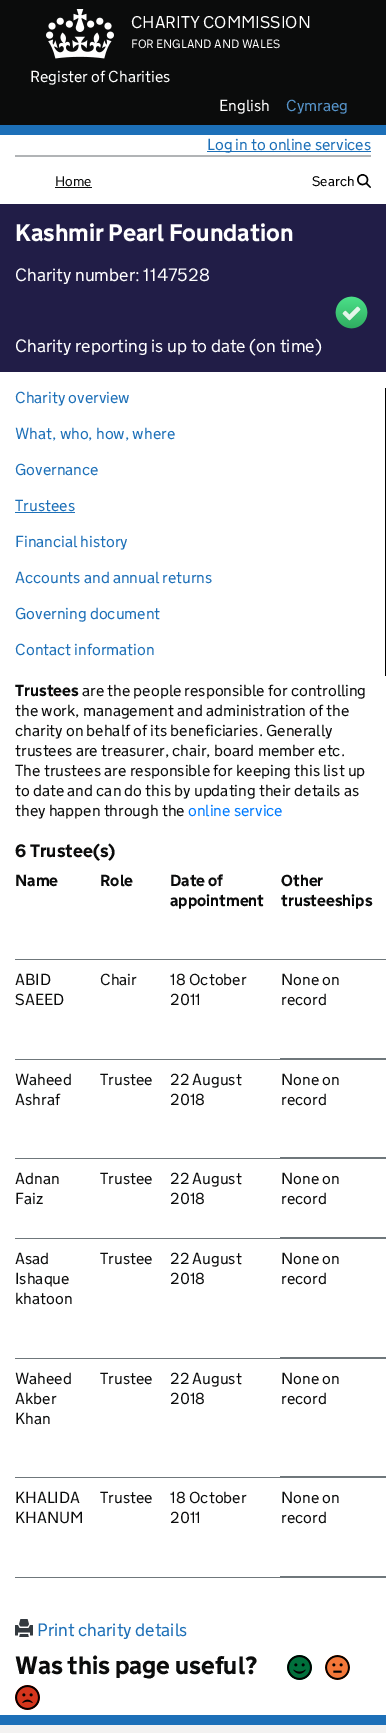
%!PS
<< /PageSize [386 1733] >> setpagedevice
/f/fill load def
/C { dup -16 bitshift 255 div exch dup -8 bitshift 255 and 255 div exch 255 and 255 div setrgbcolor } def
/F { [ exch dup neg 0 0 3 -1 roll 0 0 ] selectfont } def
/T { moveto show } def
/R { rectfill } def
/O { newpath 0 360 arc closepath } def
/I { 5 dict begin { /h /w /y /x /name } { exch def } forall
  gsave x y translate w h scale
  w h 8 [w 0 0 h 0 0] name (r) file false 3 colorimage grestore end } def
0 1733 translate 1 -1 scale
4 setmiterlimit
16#FFFFFF C
0 0 386 1733 R
16#0B0C0C C
0 0 386 125 R
16#1D70B8 C
0 125 386 10 R
(1.rgb) 46 9 68 50 I
/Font-Light 17 F
16#FFFFFF C
(CHARITY COMMISSION) 131 28 T
/Font-Light 12 F
(FOR ENGLAND AND WALES) 131 48 T
/Font-Light 16 F
(Register of Charities) 30 82 T
(English) 219 111 T
16#5694CA C
(Cymraeg) 286 111 T
16#B1B4B6 C
15 155 356 2 R
16#1D70B8 C
207 151 164 1 R
(Log in to online services) 207 150 T
/Font-Light 14 F
16#0B0C0C C
(Home) 55 186 T
55 187 37 1 R
16#000000 C
(Search) 312 186 T
(2.rgb) 357 174 14 14 I
16#211D47 C
0 204 386 168 R
/Font-Bold 24 F
16#FFFFFF C
(Kashmir Pearl Foundation) 15 241 T
/Font-Light 18 F
(Charity number: 1147528) 15 281 T
(3.rgb) 335 296 33 33 I
(Charity reporting is up to date \(on time\)) 15 352 T
16#000000 C
385 388 1 288 R
/Font-Light 16 F
16#1D70B8 C
(Charity overview) 15 403 T
(What, who, how, where) 15 439 T
(Governance) 15 475 T
(Trustees) 15 511 T
15 512 60 1 R
(Financial history) 15 547 T
(Accounts and annual returns) 15 583 T
(Governing document) 15 619 T
(Contact information) 15 655 T
/Font-Bold 16 F
16#0B0C0C C
(Trustees) 15 696 T
/Font-Light 16 F
(are the people responsible for controlling) 82 696 T
(the work, management and administration of the) 15 716 T
(charity on behalf of its beneficiaries. Generally) 15 736 T
(trustees are treasurer, chair, board member etc.) 15 756 T
(The trustees are responsible for keeping this list up) 15 776 T
(to date and can do this by updating their details as) 15 796 T
(they happen through the) 15 816 T
16#007BFF C
(online service) 188 816 T
/Font-Bold 18 F
16#0B0C0C C
(6 Trustee\(s\)) 15 857 T
/Font-Bold 16 F
(Name) 15 886 T
(Role) 100 886 T
(Date of) 170 886 T
(appointment) 170 906 T
16#6F777B C
15 959 371 1 R
16#0B0C0C C
(Other) 281 886 T
(trusteeships) 281 906 T
/Font-Light 16 F
(ABID) 15 985 T
(SAEED) 15 1005 T
(Chair) 100 985 T
16#6F777B C
280 1058 106 2 R
15 1059 266 1 R
16#0B0C0C C
(18 October) 170 985 T
(2011) 170 1005 T
(None on) 281 985 T
(record) 281 1005 T
(Waheed) 15 1085 T
(Ashraf) 15 1105 T
(Trustee) 100 1085 T
16#6F777B C
280 1157 106 2 R
15 1158 266 1 R
16#0B0C0C C
(22 August) 170 1085 T
(2018) 170 1105 T
(None on) 281 1085 T
(record) 281 1105 T
(Adnan) 15 1184 T
(Faiz) 15 1204 T
(Trustee) 100 1184 T
16#6F777B C
280 1237 106 2 R
15 1238 266 1 R
16#0B0C0C C
(22 August) 170 1184 T
(2018) 170 1204 T
(None on) 281 1184 T
(record) 281 1204 T
(Asad) 15 1264 T
(Ishaque) 15 1284 T
(khatoon) 15 1304 T
(Trustee) 100 1264 T
16#6F777B C
280 1357 106 2 R
15 1358 266 1 R
16#0B0C0C C
(22 August) 170 1264 T
(2018) 170 1284 T
(None on) 281 1264 T
(record) 281 1284 T
(Waheed) 15 1384 T
(Akber) 15 1404 T
(Khan) 15 1424 T
(Trustee) 100 1384 T
16#6F777B C
280 1476 106 2 R
15 1477 266 1 R
16#0B0C0C C
(22 August) 170 1384 T
(2018) 170 1404 T
(None on) 281 1384 T
(record) 281 1404 T
(KHALIDA) 15 1503 T
(KHANUM) 15 1523 T
(Trustee) 100 1503 T
16#6F777B C
280 1576 106 2 R
15 1577 266 1 R
16#0B0C0C C
(18 October) 170 1503 T
(2011) 170 1523 T
(None on) 281 1503 T
(record) 281 1523 T
(4.rgb) 15 1619 18 18 I
/Font-Light 18 F
16#1D70B8 C
(Print charity details) 37 1636 T
/Font-Bold 25 F
16#0B0C0C C
(Was this page useful?) 15 1674 T
16#00703C C
299.5 1667.5 12.5 O f
(5.rgb) 287 1655 25 25 I
16#F47738 C
337.5 1667.5 12.5 O f
(6.rgb) 325 1655 25 25 I
16#D4351C C
27.5 1697.5 12.5 O f
(7.rgb) 15 1685 25 25 I
16#F3F2F1 C
0 1725 386 8 R
16#1D70B8 C
0 1715 386 10 R
showpage
